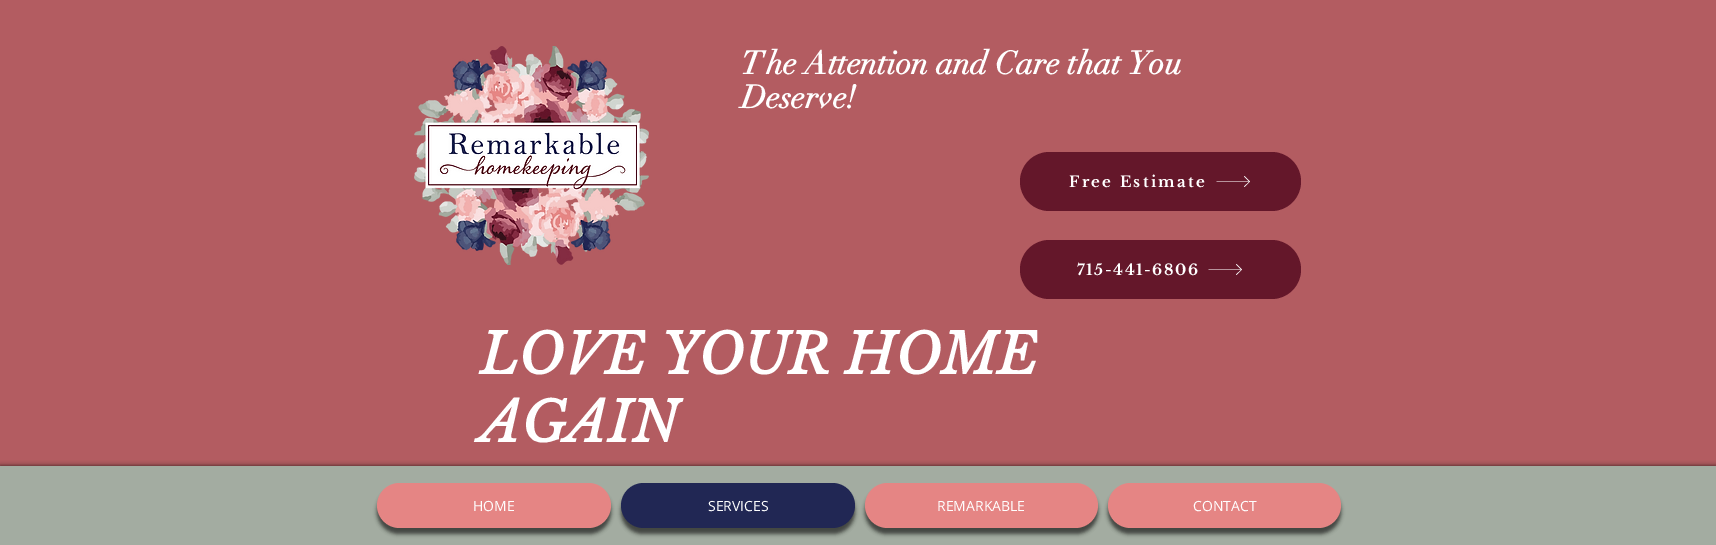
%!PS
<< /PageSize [1716 545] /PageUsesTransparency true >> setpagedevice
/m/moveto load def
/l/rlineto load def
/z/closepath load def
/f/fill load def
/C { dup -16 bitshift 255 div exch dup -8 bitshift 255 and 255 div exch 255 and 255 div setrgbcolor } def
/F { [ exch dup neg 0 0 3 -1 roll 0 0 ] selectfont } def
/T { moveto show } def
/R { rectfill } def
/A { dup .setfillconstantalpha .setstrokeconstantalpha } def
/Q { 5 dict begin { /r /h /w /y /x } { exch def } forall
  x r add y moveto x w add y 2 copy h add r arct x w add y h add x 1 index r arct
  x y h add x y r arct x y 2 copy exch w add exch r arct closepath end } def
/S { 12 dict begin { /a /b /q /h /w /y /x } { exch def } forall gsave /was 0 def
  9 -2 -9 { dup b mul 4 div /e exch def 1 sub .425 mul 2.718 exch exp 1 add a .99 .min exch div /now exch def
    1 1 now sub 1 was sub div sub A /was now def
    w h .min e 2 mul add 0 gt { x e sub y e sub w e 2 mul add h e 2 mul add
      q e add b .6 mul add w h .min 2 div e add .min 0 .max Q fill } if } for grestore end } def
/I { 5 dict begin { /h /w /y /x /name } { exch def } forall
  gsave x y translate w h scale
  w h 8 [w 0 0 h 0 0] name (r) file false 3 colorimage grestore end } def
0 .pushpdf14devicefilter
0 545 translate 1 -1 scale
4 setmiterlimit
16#B35C61 C
0 0 1716 545 R
(1.rgb) 414 46 235 219 I
/didot-Bold 32 F
16#FFFFFF C
741 74 m 3 0 (T) ashow
(he Attention and Care that You) 766 74 T
(Deserve!) 741 108 T
16#64172A C
1020 152 281 59 29.5 Q f
/LibreBaskerville-Bold 15 F
16#FFFFFF C
1069 187 m 2.25 0 (Free Estimate) ashow
1244.5 176 m -.5 .5 l 5 5 l -32.5 0 l 0 .5 l 32.5 0 l -5 4.5 l .5 .5 l 5.5 -5.5 l z f
16#64172A C
1020 240 281 59 29.5 Q f
16#FFFFFF C
1077 275 m 1.5 0 (715-441-6806) ashow
1236.5 264 m -.5 .5 l 5 5 l -32.5 0 l 0 .5 l 32.5 0 l -5 4.5 l .5 .5 l 5.5 -5.5 l z f
/LibreBaskerville-BoldItalic 55 F
(LOVE YOUR HOME) 480 374 T
(AGAIN) 480 442 T
16#000000 C
0 466 1716 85 0 2.5 .7 S
16#A3ACA1 C
0 466 1716 79 R
16#000000 C
377 489 234 45 22.5 2 .6 S
16#E58584 C
377 483 234 45 22.5 Q f
/OpenSans-Regular 14 F
16#FFFFFF C
(HOME) 473 511 T
16#000000 C
621 489 234 45 22.5 2 .6 S
16#212754 C
621 483 234 45 22.5 Q f
16#FFFFFF C
(SERVICES) 708 511 T
16#000000 C
865 489 233 45 22.5 2 .6 S
16#E58584 C
865 483 233 45 22.5 Q f
16#FFFFFF C
(REMARKABLE) 937 511 T
16#000000 C
1108 489 233 45 22.5 2 .6 S
16#E58584 C
1108 483 233 45 22.5 Q f
16#FFFFFF C
(CONTACT) 1193 511 T
.poppdf14devicefilter showpage
